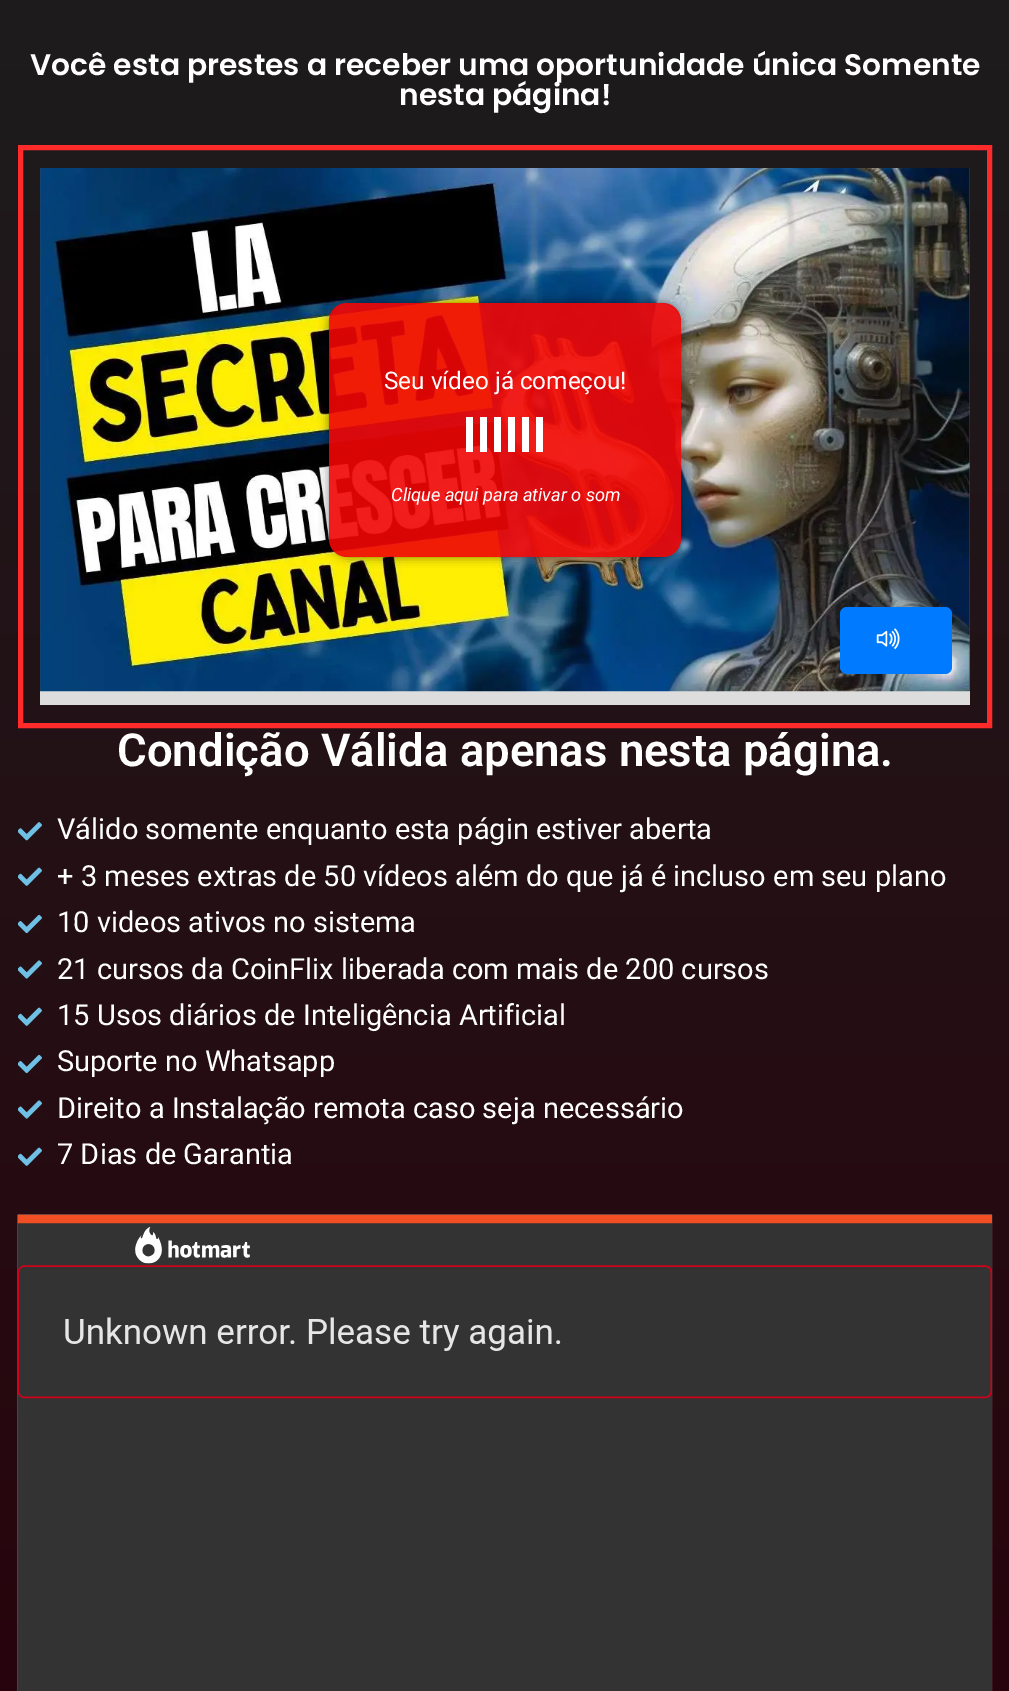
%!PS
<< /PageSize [1009 1691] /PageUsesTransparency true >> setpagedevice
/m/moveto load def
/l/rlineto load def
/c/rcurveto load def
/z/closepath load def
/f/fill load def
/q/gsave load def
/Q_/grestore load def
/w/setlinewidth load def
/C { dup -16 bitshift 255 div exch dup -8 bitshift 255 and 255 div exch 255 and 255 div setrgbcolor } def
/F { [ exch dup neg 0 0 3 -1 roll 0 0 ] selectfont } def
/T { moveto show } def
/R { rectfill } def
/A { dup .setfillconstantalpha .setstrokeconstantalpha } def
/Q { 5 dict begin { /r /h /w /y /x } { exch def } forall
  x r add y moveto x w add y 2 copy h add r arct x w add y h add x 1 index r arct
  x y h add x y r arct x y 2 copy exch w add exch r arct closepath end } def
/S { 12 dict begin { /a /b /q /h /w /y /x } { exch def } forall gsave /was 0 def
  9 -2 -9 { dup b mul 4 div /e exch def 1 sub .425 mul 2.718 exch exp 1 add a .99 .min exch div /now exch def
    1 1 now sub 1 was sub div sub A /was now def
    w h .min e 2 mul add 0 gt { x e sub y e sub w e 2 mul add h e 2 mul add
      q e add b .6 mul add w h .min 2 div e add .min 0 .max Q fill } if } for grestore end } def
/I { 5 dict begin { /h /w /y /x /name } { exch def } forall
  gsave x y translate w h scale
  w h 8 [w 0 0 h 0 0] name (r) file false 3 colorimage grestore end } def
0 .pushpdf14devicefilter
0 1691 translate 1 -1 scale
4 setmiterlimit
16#FFFFFF C
0 0 1009 1691 R
q 0 0 m 1009 0 l 0 1691 l -1009 0 l z clip newpath
<< /ShadingType 2 /ColorSpace /DeviceRGB /Coords [505 -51 505 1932] /Extend [true true] /Function << /FunctionType 2 /Domain [0 1] /C0 [.114 .114 .114] /C1 [.165 .004 .043] /N 1 >> >> shfill Q_
/Poppins-SemiBold 29.75 F
(Você esta prestes a receber uma oportunidade única Somente) 30 75 T
(nesta página!) 399 105 T
16#FF2A2A C
5 w
20.5 147.5 969 578 rectstroke
16#4A4848 C
40 168 930 523 R
16#DDDDDD C
40 691 930 14 R
(1.rgb) 40 168 930 524 I
q
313 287 m 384 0 l 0 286 l -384 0 l z 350 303 m 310 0 l 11.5 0 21 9.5 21 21 c 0 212 l 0 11.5 -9.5 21 -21 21 c -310 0 l -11.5 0 -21 -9.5 -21 -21 c 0 -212 l 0 -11.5 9.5 -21 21 -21 c z eoclip newpath
16#000000 C
329 303 352 254 21 5 .5 S
Q_
0.9 A
16#F00505 C
329 303 352 254 18 Q f
/Roboto-Regular 24.25 F
1 A
16#FFFFFF C
(Seu vídeo já começou!) 384 389 T
466 417 7 35 R
480 417 7 35 R
494 417 7 35 R
508 417 7 35 R
522 417 7 35 R
536 417 7 35 R
/Roboto-Italic 18.25 F
(Clique aqui para ativar o som) 391 501 T
16#007BFF C
840 607 112 67 7 Q f
(2.rgb) 876 628 24 22 I
/Roboto-SemiBold 45.5 F
16#FFFFFF C
(Condição Válida apenas nesta página.) 117 766 T
(3.rgb) 18 822 24 19 I
/Roboto-Regular 29 F
(Válido somente enquanto esta págin estiver aberta) 57 839 T
(4.rgb) 18 867 24 19 I
(+ 3 meses extras de 50 vídeos além do que já é incluso em seu plano) 57 886 T
(5.rgb) 18 914 24 20 I
(10 videos ativos no sistema) 57 932 T
(6.rgb) 18 960 24 19 I
(21 cursos da CoinFlix liberada com mais de 200 cursos) 57 979 T
(7.rgb) 18 1007 24 19 I
(15 Usos diários de Inteligência Artificial) 57 1025 T
(8.rgb) 18 1054 24 20 I
(Suporte no Whatsapp) 57 1071 T
(9.rgb) 18 1100 24 19 I
(Direito a Instalação remota caso seja necessário) 57 1118 T
(10.rgb) 18 1147 24 19 I
(7 Dias de Garantia) 57 1164 T
(11.rgb) 17 1214 976 477 I
.poppdf14devicefilter showpage
